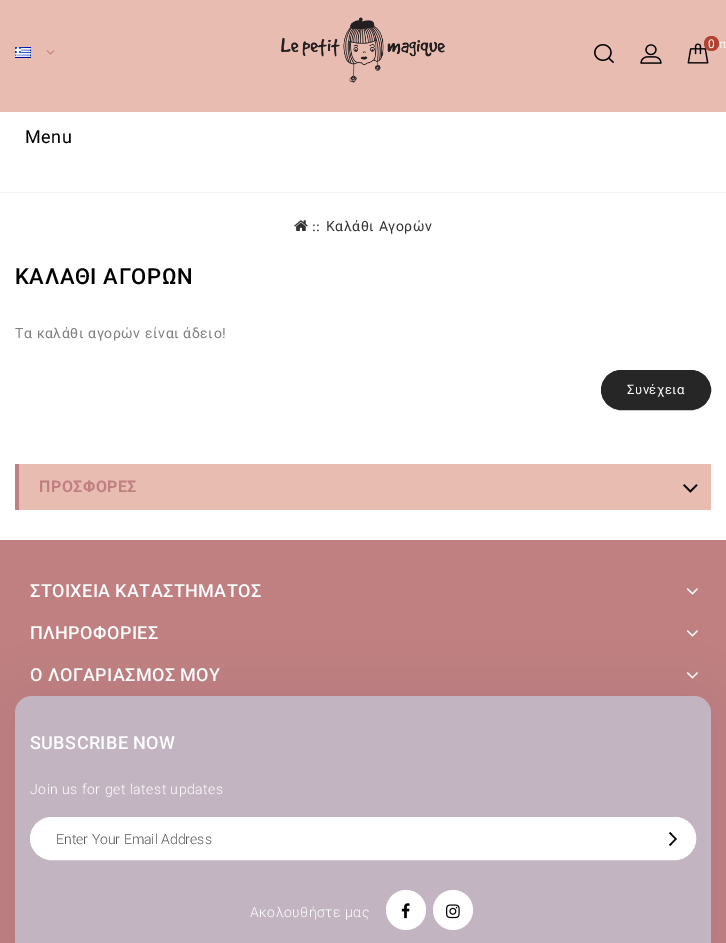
%!PS
<< /PageSize [726 943] /PageUsesTransparency true >> setpagedevice
/m/moveto load def
/l/rlineto load def
/c/rcurveto load def
/z/closepath load def
/f/fill load def
/s/stroke load def
/q/gsave load def
/Q_/grestore load def
/C { dup -16 bitshift 255 div exch dup -8 bitshift 255 and 255 div exch 255 and 255 div setrgbcolor } def
/F { [ exch dup neg 0 0 3 -1 roll 0 0 ] selectfont } def
/T { moveto show } def
/R { rectfill } def
/A { dup .setfillconstantalpha .setstrokeconstantalpha } def
/O { newpath 0 360 arc closepath } def
/Q { 5 dict begin { /r /h /w /y /x } { exch def } forall
  x r add y moveto x w add y 2 copy h add r arct x w add y h add x 1 index r arct
  x y h add x y r arct x y 2 copy exch w add exch r arct closepath end } def
/S { 12 dict begin { /a /b /q /h /w /y /x } { exch def } forall gsave /was 0 def
  9 -2 -9 { dup b mul 4 div /e exch def 1 sub .425 mul 2.718 exch exp 1 add a .99 .min exch div /now exch def
    1 1 now sub 1 was sub div sub A /was now def
    w h .min e 2 mul add 0 gt { x e sub y e sub w e 2 mul add h e 2 mul add
      q e add b .6 mul add w h .min 2 div e add .min 0 .max Q fill } if } for grestore end } def
/I { 5 dict begin { /h /w /y /x /name } { exch def } forall
  gsave x y translate w h scale
  w h 8 [w 0 0 h 0 0] name (r) file false 3 colorimage grestore end } def
0 .pushpdf14devicefilter
0 943 translate 1 -1 scale
4 setmiterlimit
16#FFFFFF C
0 0 726 943 R
16#E9BCB2 C
0 0 726 112 R
(1.rgb) 281 17 164 66 I
(2.rgb) 594 44 20 19 I
(3.rgb) 640 44 22 20 I
(4.rgb) 687 43 22 21 I
16#B1422F C
711.5 43.5 7.5 O f
/Roboto-Regular 12 F
16#FFFFFF C
708 48 m .5 0 (0 π) ashow
(5.rgb) 15 47 16 11 I
(6.rgb) 46 50 9 5 I
16#F2F2F2 C
0 192 726 1 R
/Roboto-Regular 18 F
16#000000 C
25 143 m .6 0 (Menu) ashow
(7.rgb) 294 220 14 11 I
/LiberationSerif-Regular 14 F
16#262626 C
312 231 m .6 0 (::) ashow
/Roboto-Regular 14 F
16#333333 C
326 231 m .6 0 (Καλάθι Αγορών) ashow
/Roboto-Medium 22 F
16#000000 C
15 284 m .6 0 (ΚΑΛΑΘΙ ΑΓΟΡΩΝ) ashow
/Roboto-Regular 14 F
16#808080 C
15 338 m .6 0 (Τα καλάθι αγορών είναι άδειο!) ashow
16#262626 C
601.5 370.5 109 39 19.5 Q q f Q_
s
/Roboto-Regular 13 F
16#FFFFFF C
627 394 m .5 0 (Συνέχεια) ashow
16#E9BCB2 C
19 464 692 46 R
16#C07F80 C
15 464 4 46 R
/Roboto-Bold 16 F
39 492 m .5 0 (ΠΡΟΣΦΟΡΕΣ) ashow
(8.rgb) 683 484 15 9 I
0 540 726 403 R
/Roboto-Medium 18 F
16#FFFFFF C
30 597 m .4 0 (ΣΤΟΙΧΕΙΑ ΚΑΤΑΣΤΗΜΑΤΟΣ) ashow
(9.rgb) 686 588 12 7 I
30 639 m .4 0 (ΠΛΗΡΟΦΟΡΙΕΣ) ashow
(9.rgb) 686 630 12 7 I
30 681 m .4 0 (Ο ΛΟΓΑΡΙΑΣΜΟΣ ΜΟΥ) ashow
(9.rgb) 686 672 12 7 I
16#133F6B C
15 700 696 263 17 27 .08 S
16#C3B4C1 C
15 696 696 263 17 Q f
16#FFFFFF C
30 749 m .4 0 (SUBSCRIBE NOW) ashow
/Roboto-Light 14 F
30 794 m .5 0 (Join us for get latest updates) ashow
30.5 817.5 665 42 21 Q q f Q_
s
16#555555 C
(Enter Your Email Address) 56 844 T
16#FFFFFF C
659 817 m 15.5 0 l 12 0 21.5 9.5 21.5 21.5 c 0 12 -9.5 21.5 -21.5 21.5 c -15.5 0 l z f
(10.rgb) 669 832 8 14 I
250 917 m .5 0 (Ακολουθήστε μας) ashow
406 910 20 O f
(11.rgb) 401 903 9 16 I
453 910 20 O f
(12.rgb) 446 904 14 15 I
.poppdf14devicefilter showpage
